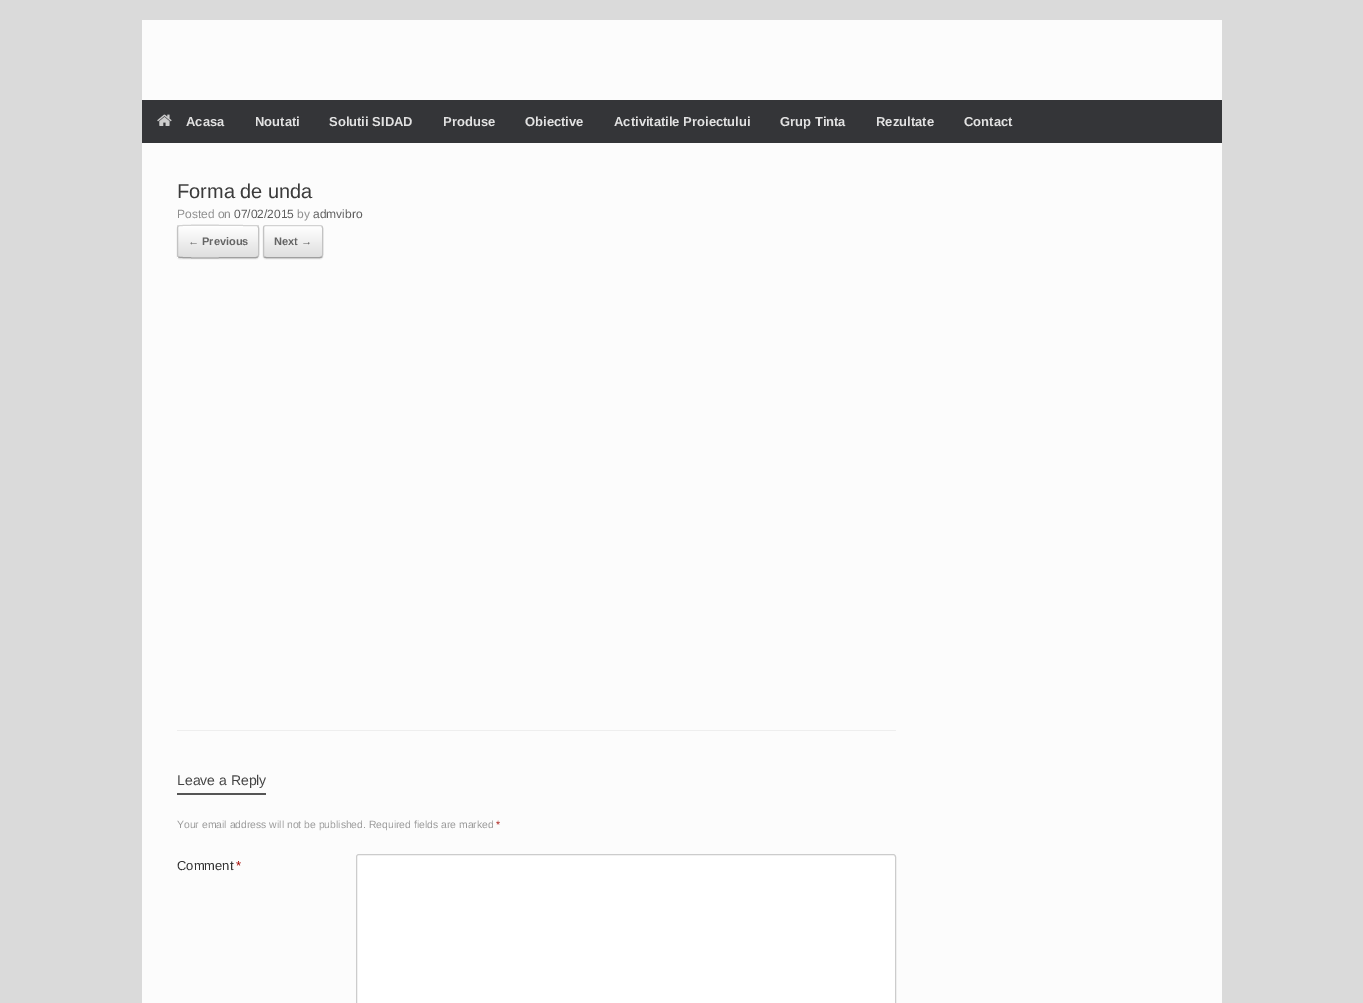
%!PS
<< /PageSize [1363 1003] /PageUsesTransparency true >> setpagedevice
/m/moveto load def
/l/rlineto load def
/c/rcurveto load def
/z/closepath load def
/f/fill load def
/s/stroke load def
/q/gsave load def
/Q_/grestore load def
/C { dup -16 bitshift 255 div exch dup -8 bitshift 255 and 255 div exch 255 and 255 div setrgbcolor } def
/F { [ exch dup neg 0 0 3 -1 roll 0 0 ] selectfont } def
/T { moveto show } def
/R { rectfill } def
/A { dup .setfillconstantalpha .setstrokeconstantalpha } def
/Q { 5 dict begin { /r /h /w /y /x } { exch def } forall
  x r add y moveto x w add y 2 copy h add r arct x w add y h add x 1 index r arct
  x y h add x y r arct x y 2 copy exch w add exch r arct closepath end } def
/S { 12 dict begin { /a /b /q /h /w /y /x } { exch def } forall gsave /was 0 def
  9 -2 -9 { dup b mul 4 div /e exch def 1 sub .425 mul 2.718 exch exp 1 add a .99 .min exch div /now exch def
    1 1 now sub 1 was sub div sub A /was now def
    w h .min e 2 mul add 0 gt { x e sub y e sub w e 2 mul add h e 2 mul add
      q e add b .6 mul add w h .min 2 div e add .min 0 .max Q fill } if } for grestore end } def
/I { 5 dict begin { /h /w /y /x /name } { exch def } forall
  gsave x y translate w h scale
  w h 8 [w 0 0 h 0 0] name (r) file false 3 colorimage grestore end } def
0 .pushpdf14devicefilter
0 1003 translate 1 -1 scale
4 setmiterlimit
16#DADADA C
0 0 1363 1003 R
16#FCFCFC C
142 20 1080 80 R
16#343538 C
142 100 1080 43 R
(1.rgb) 157 114 15 12 I
/LiberationSans-Bold 13 F
16#E2E2E2 C
(Acasa) 186 126 T
(Noutati) 255 126 T
(Solutii SIDAD) 329 126 T
(Produse) 443 126 T
(Obiective) 525 126 T
(Activitatile Proiectului) 614 126 T
(Grup Tinta) 780 126 T
(Rezultate) 876 126 T
(Contact) 964 126 T
16#FCFCFC C
142 143 1080 860 R
16#EEEEEE C
177 730 719 1 R
/LiberationSans-Regular 20 F
16#3B3B3B C
(Forma de unda) 177 198 T
/LiberationSans-Regular 12 F
16#8F8F8F C
(Posted on) 177 218 T
16#5E5E5E C
(07/02/2015) 234 218 T
16#8F8F8F C
(by) 297 218 T
16#5E5E5E C
(admvibro) 313 218 T
16#000000 C
177 226 82 33 3 .5 .12 S
q
177 225 82 33 3 Q clip newpath
q 177 225 m 82 0 l 0 1 l -82 0 l z clip newpath
<< /ShadingType 2 /ColorSpace /DeviceRGB /Coords [178 226 178 195] /Extend [true true] /Function << /FunctionType 2 /Domain [0 1] /C0 [.875 .875 .875] /C1 [1 1 1] /N 1 >> >> shfill Q_
q 177 226 m 82 0 l 0 31 l -82 0 l z clip newpath
<< /ShadingType 2 /ColorSpace /DeviceRGB /Coords [178 257 178 226] /Extend [true true] /Function << /FunctionType 2 /Domain [0 1] /C0 [.875 .875 .875] /C1 [1 1 1] /N 1 >> >> shfill Q_
q 177 257 m 82 0 l 0 1 l -82 0 l z clip newpath
<< /ShadingType 2 /ColorSpace /DeviceRGB /Coords [178 288 178 257] /Extend [true true] /Function << /FunctionType 2 /Domain [0 1] /C0 [.875 .875 .875] /C1 [1 1 1] /N 1 >> >> shfill Q_
Q_
16#D2D2D2 C
178 226 m .5 0 l 2 -1.5 58 -.5 65 -.5 c 12.5 0 l 2 .5 l s
16#C3C3C3 C
258 226 m 0 .5 .5 1.5 .5 2 c 0 27 l 0 .5 -.5 1.5 -.5 2 c s
16#9F9F9F C
258 257 m -2 .5 l -12.5 0 l -7 0 -63 1 -65 -.5 c -.5 0 l s
16#C3C3C3 C
178 257 m 0 -.5 -.5 -1.5 -.5 -2 c 0 -27 l 0 -.5 .5 -1.5 .5 -2 c s
/LiberationSans-Bold 11 F
16#646464 C
(← Previous) 188 245 T
16#000000 C
263 226 60 33 3 .5 .12 S
q
263 225 60 33 3 Q clip newpath
q 263 226 m 60 0 l 0 31 l -60 0 l z clip newpath
<< /ShadingType 2 /ColorSpace /DeviceRGB /Coords [264 257 264 226] /Extend [true true] /Function << /FunctionType 2 /Domain [0 1] /C0 [.875 .875 .875] /C1 [1 1 1] /N 1 >> >> shfill Q_
Q_
16#D2D2D2 C
264 226 m 2 -.5 l 54 0 l 2 .5 l s
16#C3C3C3 C
322 226 m 0 .5 .5 1.5 .5 2 c 0 27 l 0 .5 -.5 1.5 -.5 2 c s
16#9F9F9F C
322 257 m -2 .5 l -54 0 l -2 -.5 l s
16#C3C3C3 C
264 257 m 0 -.5 -.5 -1.5 -.5 -2 c 0 -27 l 0 -.5 .5 -1.5 .5 -2 c s
16#646464 C
(Next →) 274 245 T
16#555555 C
177 793 89 2 R
/LiberationSans-Regular 14 F
16#444444 C
(Leave a Reply) 177 785 T
/LiberationSans-Regular 10.4 F
16#999999 C
(Your email address will not be published. Required fields are marked) 177 828 T
16#A40802 C
(*) 496 828 T
/LiberationSans-Regular 13 F
16#333333 C
(Comment) 177 870 T
16#A40802 C
(*) 236 870 T
16#FFFFFF C
356.5 854.5 539 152 2.5 Q q f Q_
16#CCCCCC C
s
.poppdf14devicefilter showpage
